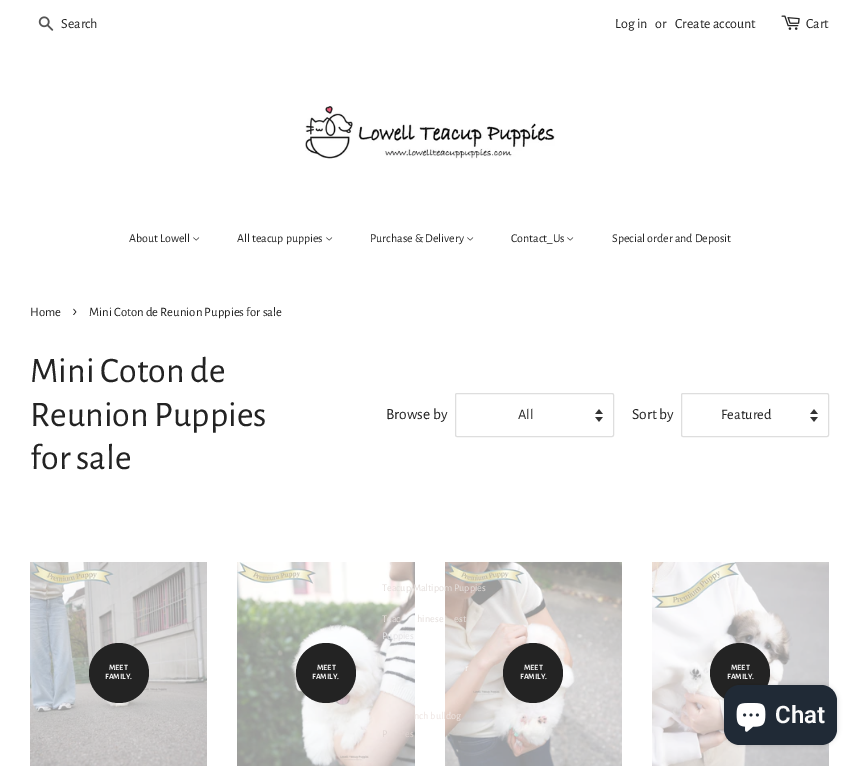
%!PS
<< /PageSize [859 766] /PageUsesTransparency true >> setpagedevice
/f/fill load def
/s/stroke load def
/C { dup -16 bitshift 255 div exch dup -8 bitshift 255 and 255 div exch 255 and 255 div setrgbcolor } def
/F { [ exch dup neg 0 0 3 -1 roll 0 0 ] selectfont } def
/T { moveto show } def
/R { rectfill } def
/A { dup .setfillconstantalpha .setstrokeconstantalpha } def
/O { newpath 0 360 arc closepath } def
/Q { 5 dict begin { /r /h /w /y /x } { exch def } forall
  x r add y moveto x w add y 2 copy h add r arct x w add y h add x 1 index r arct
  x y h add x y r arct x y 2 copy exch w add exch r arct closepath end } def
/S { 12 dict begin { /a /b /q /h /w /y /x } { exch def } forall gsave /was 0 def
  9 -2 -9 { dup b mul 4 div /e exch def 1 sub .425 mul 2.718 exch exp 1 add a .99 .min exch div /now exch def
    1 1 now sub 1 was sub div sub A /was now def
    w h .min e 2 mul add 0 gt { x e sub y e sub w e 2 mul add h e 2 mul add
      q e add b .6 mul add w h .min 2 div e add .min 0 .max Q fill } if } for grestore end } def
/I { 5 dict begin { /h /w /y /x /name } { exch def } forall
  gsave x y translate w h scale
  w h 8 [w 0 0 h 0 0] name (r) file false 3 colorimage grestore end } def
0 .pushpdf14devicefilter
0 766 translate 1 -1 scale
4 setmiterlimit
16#FFFFFF C
0 0 859 766 R
(1.rgb) 38 16 16 15 I
/AlegreyaSans-Regular 14 F
16#232323 C
(Search) 61 28 T
(Log in) 615 28 T
(or) 655 28 T
(Create account) 675 28 T
(2.rgb) 781 15 19 15 I
(Cart) 806 28 T
(3.rgb) 305 106 250 53 I
/AlegreyaSans-Regular 12 F
(About Lowell) 129 242 T
(4.rgb) 193 237 7 4 I
(All teacup puppies) 237 242 T
(4.rgb) 326 237 7 4 I
(7.rgb) 237 562 178 204 I
(8.rgb) 445 562 177 204 I
/AlegreyaSans-Regular 10.25 F
16#E4DEDB C
(Teacup Maltipom Puppies) 382 591 T
(Teac) 382 622 T
(hinese) 417 622 T
(est) 454 622 T
16#E5E4E6 C
(Puppies) 382 639 T
16#FAFAFA C
(r) 465 671 T
16#EEE5E2 C
(nch bulldog) 414 719 T
16#DED4D1 C
(P) 382 737 T
(es) 405 737 T
/AlegreyaSans-Regular 12 F
16#232323 C
(Purchase & Delivery) 370 242 T
(4.rgb) 467 237 7 4 I
(Contact_Us) 511 242 T
(4.rgb) 567 237 7 4 I
(Special order and Deposit) 612 242 T
/AlegreyaSans-Regular 12.75 F
(Home) 30 316 T
/AlegreyaSans-Regular 18 F
(›) 73 316 T
/AlegreyaSans-Regular 12.75 F
(Mini Coton de Reunion Puppies for sale) 89 316 T
/AlegreyaSans-Regular 36 F
(Mini Coton de) 30 382 T
(Reunion Puppies) 30 426 T
(for sale) 30 469 T
/AlegreyaSans-Regular 15.5 F
(Browse by) 386 419 T
(5.rgb) 595 409 8 13 I
16#DEDEDE C
455.5 393.5 158 43 1.5 Q s
/AlegreyaSans-Regular 14.5 F
16#232323 C
(All) 518 419 T
/AlegreyaSans-Regular 15.5 F
(Sort by) 632 419 T
(5.rgb) 810 409 8 13 I
16#DEDEDE C
681.5 393.5 147 43 1.5 Q s
/AlegreyaSans-Regular 14.5 F
16#232323 C
(Featured) 721 419 T
(6.rgb) 30 562 177 204 I
119 673 30 O f
/AlegreyaSans-Bold 8 F
16#FAFAFA C
(MEET) 109 670 T
(FAMILY.) 105 679 T
16#232323 C
326 673 30 O f
16#FAFAFA C
(MEET) 317 670 T
(FAMILY.) 312 679 T
16#232323 C
533 673 30 O f
16#FAFAFA C
(MEET) 524 670 T
(FAMILY.) 520 679 T
(9.rgb) 652 562 177 204 I
16#232323 C
740 673 30 O f
16#FAFAFA C
(MEET) 731 670 T
(FAMILY.) 727 679 T
16#000000 C
724 685 113 60 16 2.5 .15 S
16#202A36 C
724 685 113 60 16 Q f
(10.rgb) 736 703 30 29 I
/Roboto-SemiBold 24 F
16#FAFAFA C
(Chat) 775 723 T
.poppdf14devicefilter showpage
